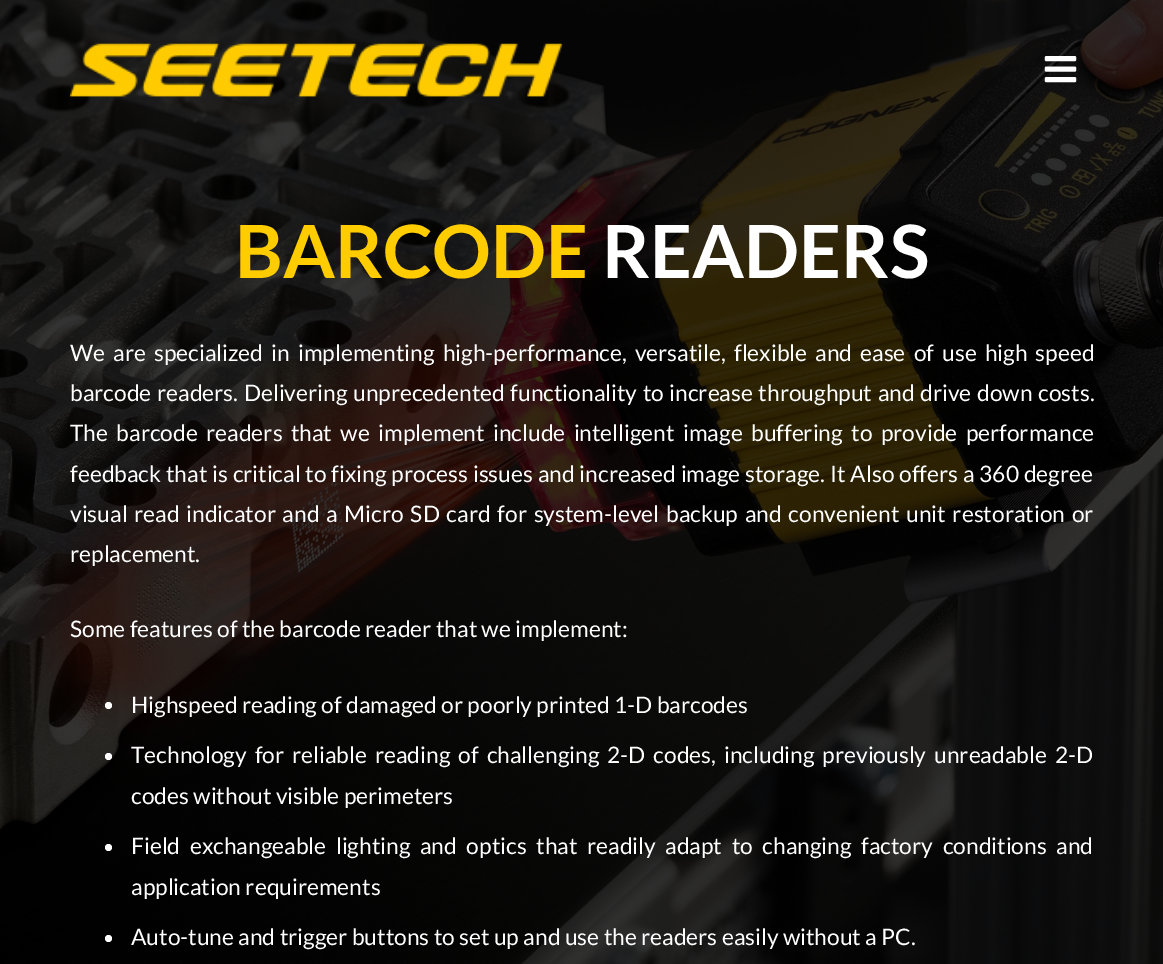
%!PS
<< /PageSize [1163 964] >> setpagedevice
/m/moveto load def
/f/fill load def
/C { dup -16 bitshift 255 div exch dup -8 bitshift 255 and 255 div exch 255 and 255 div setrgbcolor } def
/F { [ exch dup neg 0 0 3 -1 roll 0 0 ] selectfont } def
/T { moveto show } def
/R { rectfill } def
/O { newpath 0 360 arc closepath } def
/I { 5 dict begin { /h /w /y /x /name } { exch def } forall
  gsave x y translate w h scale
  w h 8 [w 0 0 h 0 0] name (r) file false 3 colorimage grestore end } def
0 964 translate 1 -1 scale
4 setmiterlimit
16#FFFFFF C
0 0 1163 964 R
(3.rgb) 0 0 1163 964 I
(1.rgb) 70 43 493 54 I
(2.rgb) 1044 56 33 27 I
/Lato-Bold 73.5 F
16#FFCC00 C
(BARCODE) 235 278 T
16#FFFFFF C
(READERS) 602 278 T
/Lato-Regular 22.75 F
70 361 m 3.75 0 32 (We are specialized in implementing high-performance, versatile, flexible and ease of use high speed) widthshow
70 401 m 1.25 0 32 (barcode readers. Delivering unprecedented functionality to increase throughput and drive down costs.) widthshow
70 441 m 4 0 32 (The barcode readers that we implement include intelligent image buffering to provide performance) widthshow
70 482 m .5 0 32 (feedback that is critical to fixing process issues and increased image storage. It Also offers a 360 degree) widthshow
70 522 m 2.4 0 32 (visual read indicator and a Micro SD card for system-level backup and convenient unit restoration or) widthshow
(replacement.) 70 562 T
(Some features of the barcode reader that we implement:) 70 637 T
108.5 705.5 3.5 O f
(Highspeed reading of damaged or poorly printed 1-D barcodes) 131 713 T
108.5 756.5 3.5 O f
131 763 m 3.6 0 32 (Technology for reliable reading of challenging 2-D codes, including previously unreadable 2-D) widthshow
(codes without visible perimeters) 131 804 T
108.5 847.5 3.5 O f
131 854 m 5.25 0 32 (Field exchangeable lighting and optics that readily adapt to changing factory conditions and) widthshow
(application requirements) 131 895 T
108.5 938.5 3.5 O f
(Auto-tune and trigger buttons to set up and use the readers easily without a PC.) 131 945 T
showpage
